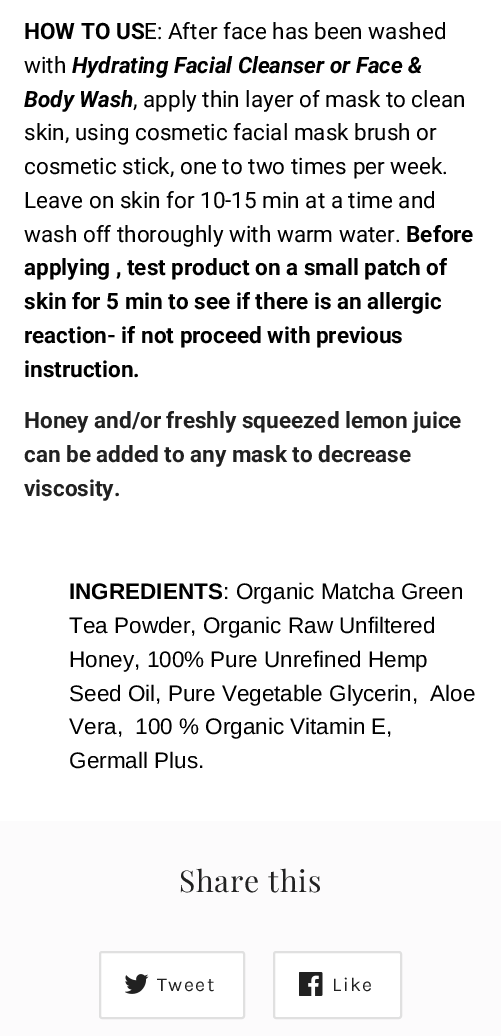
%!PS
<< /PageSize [501 1036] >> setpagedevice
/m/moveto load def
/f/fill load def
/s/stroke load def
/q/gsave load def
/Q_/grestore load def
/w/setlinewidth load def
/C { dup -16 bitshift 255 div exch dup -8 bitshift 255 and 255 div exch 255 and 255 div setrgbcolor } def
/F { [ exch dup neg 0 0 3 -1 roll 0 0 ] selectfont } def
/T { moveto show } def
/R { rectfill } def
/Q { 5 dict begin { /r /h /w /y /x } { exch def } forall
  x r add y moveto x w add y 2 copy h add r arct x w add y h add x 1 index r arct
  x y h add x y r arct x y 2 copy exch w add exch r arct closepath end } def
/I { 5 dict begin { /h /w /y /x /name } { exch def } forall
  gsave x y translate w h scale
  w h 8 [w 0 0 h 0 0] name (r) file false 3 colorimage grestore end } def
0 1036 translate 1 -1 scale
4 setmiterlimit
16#FFFFFF C
0 0 501 1036 R
/Roboto-Bold 22.5 F
16#000000 C
(HOW TO US) 24 39 T
/Roboto-Regular 22.5 F
(E: After face has been washed) 144 39 T
(with) 24 73 T
/Roboto-BoldItalic 22.5 F
(Hydrating Facial Cleanser or Face &) 72 73 T
(Body Wash) 24 107 T
/Roboto-Regular 22.5 F
(, apply thin layer of mask to clean) 133 107 T
(skin, using cosmetic facial mask brush or) 24 140 T
(cosmetic stick, one to two times per week.) 24 174 T
(Leave on skin for 10-15 min at a time and) 24 208 T
(wash off thoroughly with warm water.) 24 242 T
/Roboto-Bold 22.5 F
(Before) 406 242 T
(applying , test product on a small patch of) 24 275 T
(skin for 5 min to see if there is an allergic) 24 309 T
(reaction- if not proceed with previous) 24 343 T
(instruction.) 24 377 T
16#212121 C
(Honey and/or freshly squeezed lemon juice) 24 428 T
(can be added to any mask to decrease) 24 462 T
(viscosity.) 24 496 T
/LiberationSans-Bold 22.5 F
16#000000 C
(INGREDIENTS) 69 599 T
/LiberationSans-Regular 22.5 F
(: Organic Matcha Green) 223 599 T
(Tea Powder, Organic Raw Unfiltered) 69 633 T
(Honey, 100% Pure Unrefined Hemp) 69 667 T
(Seed Oil, Pure Vegetable Glycerin,) 69 701 T
(Aloe) 430 701 T
(Vera,) 69 734 T
(100 % Organic Vitamin E,) 135 734 T
(Germall Plus.) 69 768 T
16#FCFBFC C
0 821 501 215 R
/PlayfairDisplay-Regular 30 F
16#212121 C
179 892 m .75 0 (Share this) ashow
16#FFFFFF C
100 952 144 66 2 Q q f Q_
16#E0E0E0 C
2 w
s
(1.rgb) 125 974 24 20 I
/Karla-Regular 19.5 F
16#212121 C
157 991 m 1.5 0 (Tweet) ashow
16#FFFFFF C
274 952 127 66 2 Q q f Q_
16#E0E0E0 C
s
(2.rgb) 299 972 24 24 I
16#212121 C
332 991 m 1.5 0 (Like) ashow
showpage
